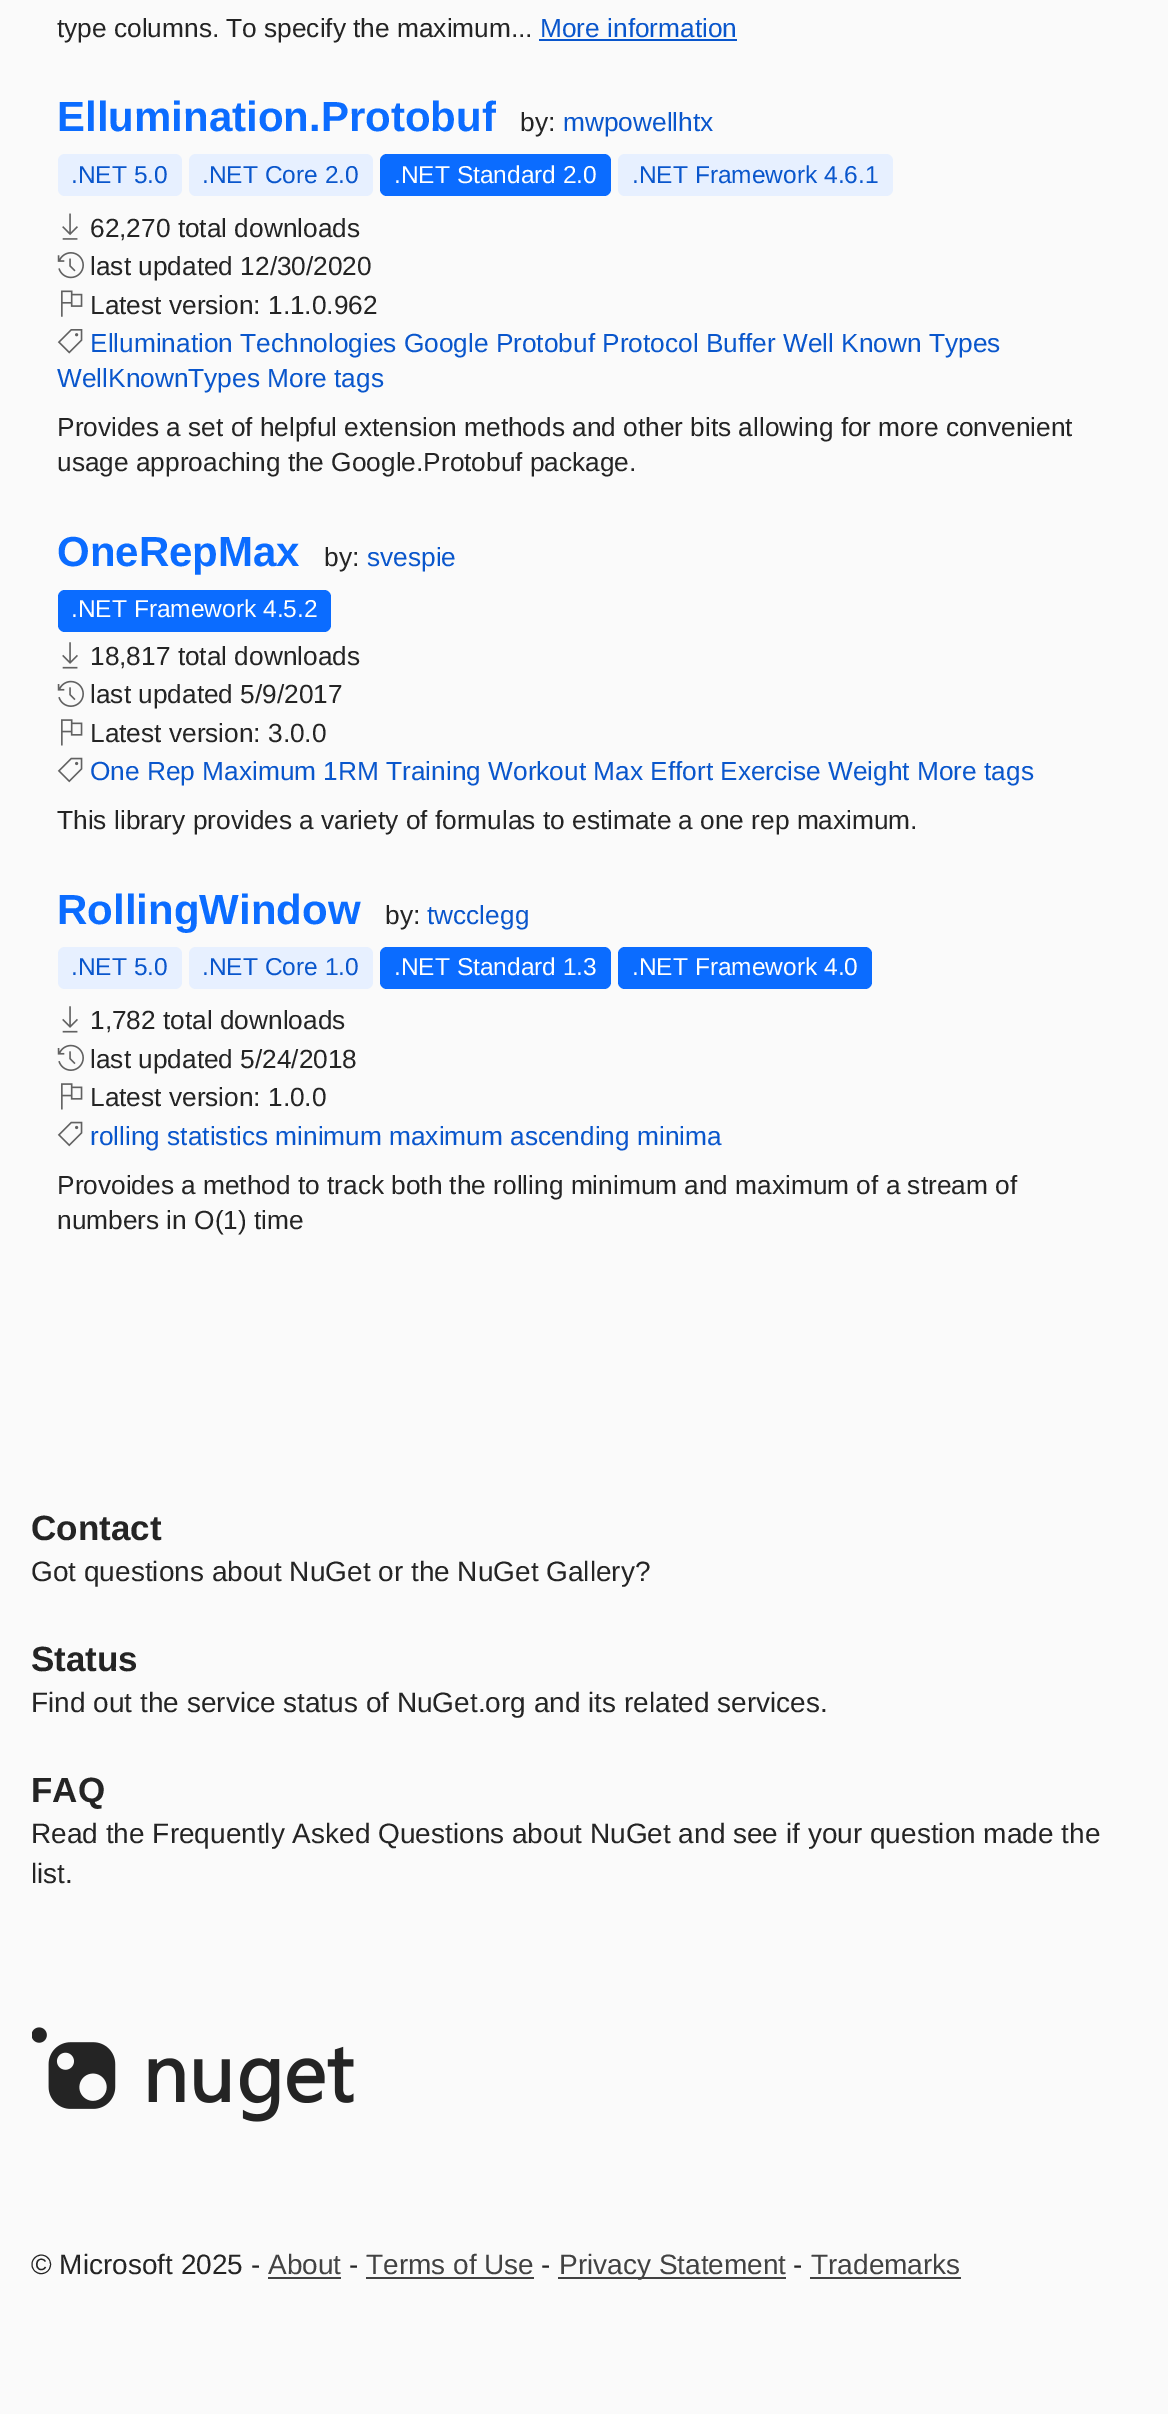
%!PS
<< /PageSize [1168 2414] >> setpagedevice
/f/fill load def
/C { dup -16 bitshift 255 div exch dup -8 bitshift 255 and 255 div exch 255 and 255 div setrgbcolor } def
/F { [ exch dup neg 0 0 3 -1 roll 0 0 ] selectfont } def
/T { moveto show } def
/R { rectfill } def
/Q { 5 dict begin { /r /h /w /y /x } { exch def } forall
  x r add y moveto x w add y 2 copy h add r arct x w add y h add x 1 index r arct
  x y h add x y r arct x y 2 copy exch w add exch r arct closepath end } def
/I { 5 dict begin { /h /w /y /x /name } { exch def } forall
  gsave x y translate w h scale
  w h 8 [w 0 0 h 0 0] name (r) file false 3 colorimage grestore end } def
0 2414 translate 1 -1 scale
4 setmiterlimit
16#FAFAFA C
0 0 1168 2414 R
/LiberationSans-Regular 26.25 F
16#242424 C
(type columns. To specify the maximum...) 57 37 T
16#0956CC C
(More information) 540 37 T
539 39 198 2 R
/LiberationSans-Bold 42 F
16#0B6CFF C
(Ellumination.Protobuf) 57 131 T
/LiberationSans-Regular 26.25 F
16#242424 C
(by:) 520 131 T
16#0956CC C
(mwpowellhtx) 563 131 T
16#E7F0FF C
58 154 124 42 7 Q f
/LiberationSans-Regular 24.5 F
16#0956CC C
(.NET 5.0) 71 183 T
16#E7F0FF C
189 154 184 42 7 Q f
16#0956CC C
(.NET Core 2.0) 202 183 T
16#0B6CFF C
380 154 231 42 7 Q f
16#FFFFFF C
(.NET Standard 2.0) 394 183 T
16#E7F0FF C
618 154 275 42 7 Q f
16#0956CC C
(.NET Framework 4.6.1) 632 183 T
(1.rgb) 62 213 16 27 I
/LiberationSans-Regular 26.25 F
16#242424 C
(62,270 total downloads) 90 237 T
(2.rgb) 57 252 27 27 I
(last updated 12/30/2020) 90 275 T
(3.rgb) 61 290 22 27 I
(Latest version: 1.1.0.962) 90 314 T
(4.rgb) 57 329 26 25 I
16#0956CC C
(Ellumination Technologies Google Protobuf Protocol Buffer Well Known Types) 90 352 T
(WellKnownTypes More tags) 57 387 T
16#242424 C
(Provides a set of helpful extension methods and other bits allowing for more convenient) 57 436 T
(usage approaching the Google.Protobuf package.) 57 471 T
/LiberationSans-Bold 42 F
16#0B6CFF C
(OneRepMax) 57 566 T
/LiberationSans-Regular 26.25 F
16#242424 C
(by:) 324 566 T
16#0956CC C
(svespie) 367 566 T
16#0B6CFF C
58 590 273 42 7 Q f
/LiberationSans-Regular 24.5 F
16#FFFFFF C
(.NET Framework 4.5.2) 71 617 T
(5.rgb) 62 642 16 27 I
/LiberationSans-Regular 26.25 F
16#242424 C
(18,817 total downloads) 90 665 T
(6.rgb) 57 680 27 27 I
(last updated 5/9/2017) 90 703 T
(7.rgb) 61 719 22 27 I
(Latest version: 3.0.0) 90 742 T
(8.rgb) 57 757 26 26 I
16#0956CC C
(One Rep Maximum 1RM Training Workout Max Effort Exercise Weight More tags) 90 780 T
16#242424 C
(This library provides a variety of formulas to estimate a one rep maximum.) 57 829 T
/LiberationSans-Bold 42 F
16#0B6CFF C
(RollingWindow) 57 924 T
/LiberationSans-Regular 26.25 F
16#242424 C
(by:) 385 924 T
16#0956CC C
(twcclegg) 427 924 T
16#E7F0FF C
58 947 124 42 7 Q f
/LiberationSans-Regular 24.5 F
16#0956CC C
(.NET 5.0) 71 975 T
16#E7F0FF C
189 947 184 42 7 Q f
16#0956CC C
(.NET Core 1.0) 202 975 T
16#0B6CFF C
380 947 231 42 7 Q f
16#FFFFFF C
(.NET Standard 1.3) 394 975 T
16#0B6CFF C
618 947 254 42 7 Q f
16#FFFFFF C
(.NET Framework 4.0) 632 975 T
(5.rgb) 62 1006 16 27 I
/LiberationSans-Regular 26.25 F
16#242424 C
(1,782 total downloads) 90 1029 T
(6.rgb) 57 1044 27 27 I
(last updated 5/24/2018) 90 1068 T
(7.rgb) 61 1083 22 27 I
(Latest version: 1.0.0) 90 1106 T
(8.rgb) 57 1121 26 26 I
16#0956CC C
(rolling statistics minimum maximum ascending minima) 90 1145 T
16#242424 C
(Provoides a method to track both the rolling minimum and maximum of a stream of) 57 1194 T
(numbers in O\(1\) time) 57 1229 T
/LiberationSans-Bold 35 F
(Contact) 31 1540 T
/LiberationSans-Regular 28 F
(Got questions about NuGet or the NuGet Gallery?) 31 1581 T
/LiberationSans-Bold 35 F
(Status) 31 1671 T
/LiberationSans-Regular 28 F
(Find out the service status of NuGet.org and its related services.) 31 1712 T
/LiberationSans-Bold 35 F
(FAQ) 31 1802 T
/LiberationSans-Regular 28 F
(Read the Frequently Asked Questions about NuGet and see if your question made the) 31 1843 T
(list.) 31 1883 T
(9.rgb) 32 2027 322 95 I
(© Microsoft 2025 -) 31 2274 T
16#424242 C
(About) 268 2274 T
268 2277 73 2 R
16#242424 C
(-) 349 2274 T
16#424242 C
(Terms of Use) 366 2274 T
366 2277 168 2 R
16#242424 C
(-) 541 2274 T
16#424242 C
558 2277 228 2 R
(Privacy Statement) 559 2274 T
16#242424 C
(-) 793 2274 T
16#424242 C
(Trademarks) 811 2274 T
810 2277 151 2 R
showpage
